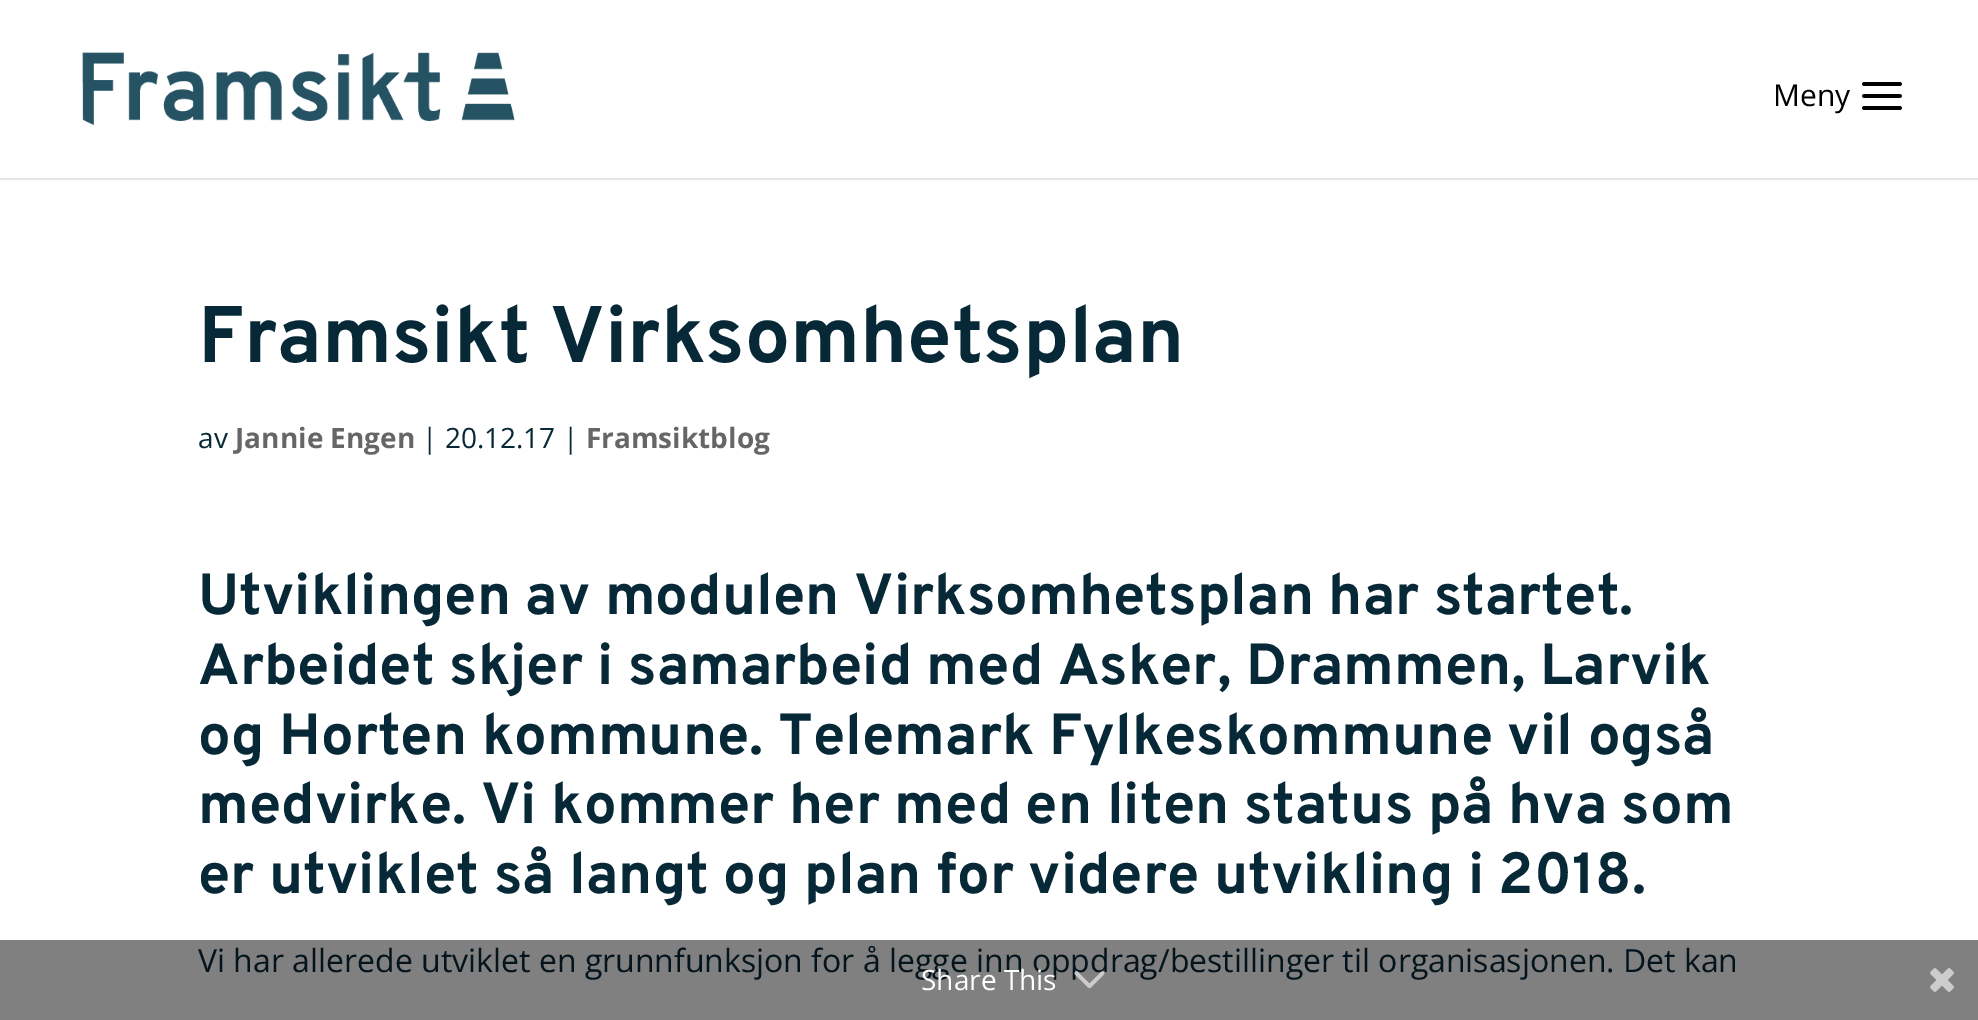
%!PS
<< /PageSize [1978 1020] >> setpagedevice
/C { dup -16 bitshift 255 div exch dup -8 bitshift 255 and 255 div exch 255 and 255 div setrgbcolor } def
/F { [ exch dup neg 0 0 3 -1 roll 0 0 ] selectfont } def
/T { moveto show } def
/R { rectfill } def
/I { 5 dict begin { /h /w /y /x /name } { exch def } forall
  gsave x y translate w h scale
  w h 8 [w 0 0 h 0 0] name (r) file false 3 colorimage grestore end } def
0 1020 translate 1 -1 scale
4 setmiterlimit
16#FFFFFF C
0 0 1978 1020 R
16#E6E6E6 C
0 178 1978 2 R
(1.rgb) 82 52 433 73 I
/OpenSans-Regular 30 F
16#000000 C
(Meny) 1773 106 T
(2.rgb) 1862 82 40 28 I
16#808080 C
0 940 1978 80 R
/Overpass-Bold 80 F
16#072837 C
(Framsikt Virksomhetsplan) 198 362 T
/OpenSans-Regular 28 F
(av) 198 448 T
/OpenSans-Bold 28 F
16#666666 C
(Jannie Engen) 235 448 T
/OpenSans-Regular 28 F
16#072837 C
(| 20.12.17 |) 422 448 T
/OpenSans-Bold 28 F
16#666666 C
(Framsiktblog) 586 448 T
/Overpass-Bold 58 F
16#072837 C
(Utviklingen av modulen Virksomhetsplan har startet.) 198 614 T
(Arbeidet skjer i samarbeid med Asker, Drammen, Larvik) 198 684 T
(og Horten kommune. Telemark Fylkeskommune vil også) 198 754 T
(medvirke. Vi kommer her med en liten status på hva som) 198 823 T
(er utviklet så langt og plan for videre utvikling i 2018.) 198 893 T
/OpenSans-Regular 32 F
16#04141C C
(Vi har allerede utviklet en grunnfunksjon for å legge inn oppdrag/bestillinger til organisasjonen. Det kan) 198 972 T
/OpenSans-Regular 28 F
16#FFFFFF C
(Share This) 921 990 T
(3.rgb) 1074 971 31 18 I
(4.rgb) 1930 968 24 24 I
showpage
